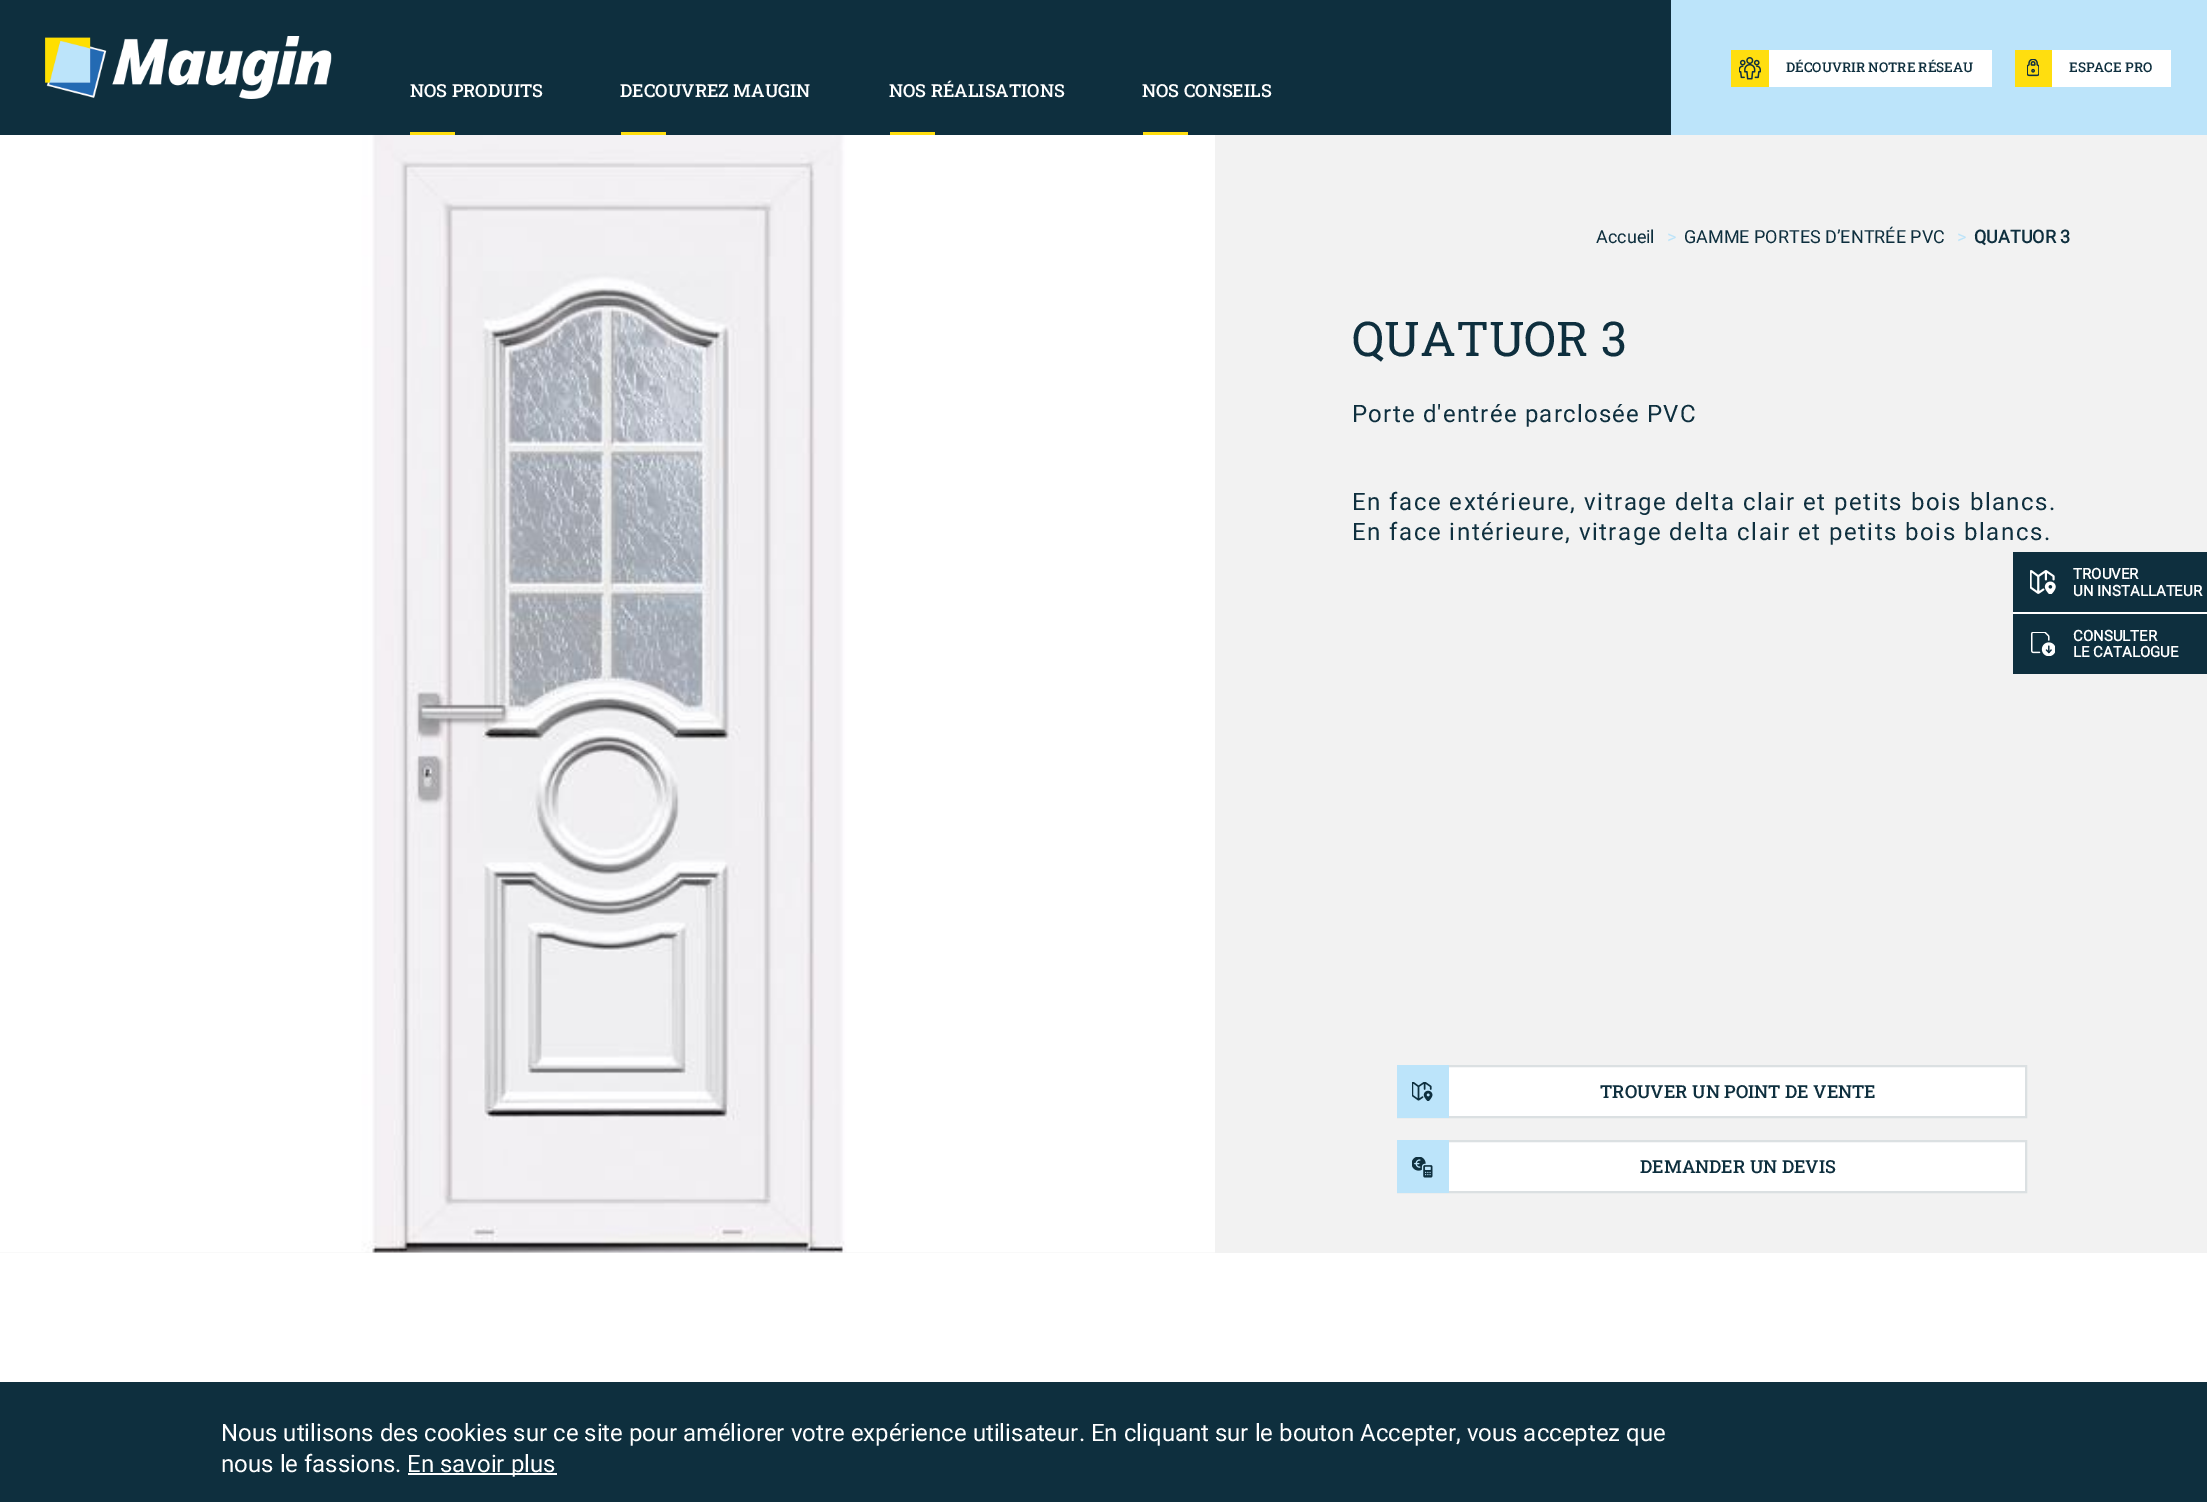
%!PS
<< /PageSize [2207 1502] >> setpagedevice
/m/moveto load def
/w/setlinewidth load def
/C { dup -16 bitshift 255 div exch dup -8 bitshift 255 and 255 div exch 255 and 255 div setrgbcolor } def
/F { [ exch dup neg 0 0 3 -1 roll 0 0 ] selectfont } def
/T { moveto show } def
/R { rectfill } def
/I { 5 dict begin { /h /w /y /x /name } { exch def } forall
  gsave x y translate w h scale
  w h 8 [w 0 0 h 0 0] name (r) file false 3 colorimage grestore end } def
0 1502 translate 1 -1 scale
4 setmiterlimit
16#FFFFFF C
0 0 2207 1502 R
16#0E2F3E C
0 0 1671 135 R
(1.rgb) 45 36 287 63 I
16#BCE4FA C
1671 0 536 135 R
16#FFFFFF C
1769 50 223 37 R
16#FFDE0F C
1731 50 38 37 R
(2.rgb) 1739 57 22 23 I
/RobotoSlab-Medium 13.5 F
16#0E2F3E C
(DÉCOUVRIR NOTRE RÉSEAU) 1786 72 T
16#FFFFFF C
2052 50 119 37 R
16#FFDE0F C
2015 50 37 37 R
(3.rgb) 2027 59 12 18 I
16#0E2F3E C
(ESPACE PRO) 2069 72 T
/RobotoSlab-Medium 18 F
16#FFFFFF C
(NOS PRODUITS) 410 97 T
16#FFDE0F C
410 132 45 3 R
16#FFFFFF C
(DECOUVREZ MAUGIN) 620 97 T
16#FFDE0F C
621 132 45 3 R
16#FFFFFF C
(NOS RÉALISATIONS) 889 97 T
16#FFDE0F C
890 132 45 3 R
16#FFFFFF C
(NOS CONSEILS) 1142 97 T
16#FFDE0F C
1143 132 45 3 R
16#F2F2F2 C
0 135 2207 1118 R
16#0E2F3E C
2013 552 194 122 R
16#FFFFFF C
2013 612 194 2 R
(4.rgb) 2030 570 26 24 I
/Roboto-Bold 15 F
(TROUVER) 2073 579 T
(UN INSTALLATEUR) 2073 596 T
(5.rgb) 2031 632 24 24 I
(CONSULTER) 2073 641 T
(LE CATALOGUE) 2073 657 T
(6.rgb) 0 135 1215 1118 I
/Roboto-Regular 18 F
16#0E2F3E C
(Accueil) 1596 243 T
16#BCE4FA C
(>) 1667 243 T
16#0E2F3E C
(GAMME PORTES D’ENTRÉE PVC) 1684 243 T
16#BCE4FA C
(>) 1957 243 T
/Roboto-Bold 18 F
16#0E2F3E C
(QUATUOR 3) 1974 243 T
/RobotoSlab-Regular 48 F
(QUATUOR 3) 1352 356 T
/Roboto-Regular 24 F
1352 422 m 1.2 0 (Porte d'entrée parclosée PVC) ashow
1352 510 m 1.5 0 (En face extérieure, vitrage delta clair et petits bois blancs.) ashow
1352 540 m 1.5 0 (En face intérieure, vitrage delta clair et petits bois blancs.) ashow
16#FFFFFF C
1449 1067 576 49 R
16#DBE0E2 C
2 w
1398 1066 628 51 rectstroke
16#BCE4FA C
1397 1065 52 53 R
(7.rgb) 1412 1082 21 19 I
/RobotoSlab-Medium 18 F
16#0E2F3E C
(TROUVER UN POINT DE VENTE) 1600 1098 T
16#FFFFFF C
1449 1142 576 49 R
16#DBE0E2 C
1398 1141 628 51 rectstroke
16#BCE4FA C
1397 1140 52 53 R
(8.rgb) 1412 1157 21 21 I
16#0E2F3E C
(DEMANDER UN DEVIS) 1640 1173 T
0 1382 2207 120 R
/Roboto-Regular 24 F
16#FFFFFF C
(Nous utilisons des cookies sur ce site pour améliorer votre expérience utilisateur. En cliquant sur le bouton Accepter, vous acceptez que) 221 1441 T
(nous le fassions.) 221 1472 T
408 1473 149 2 R
(En savoir plus) 407 1472 T
showpage
